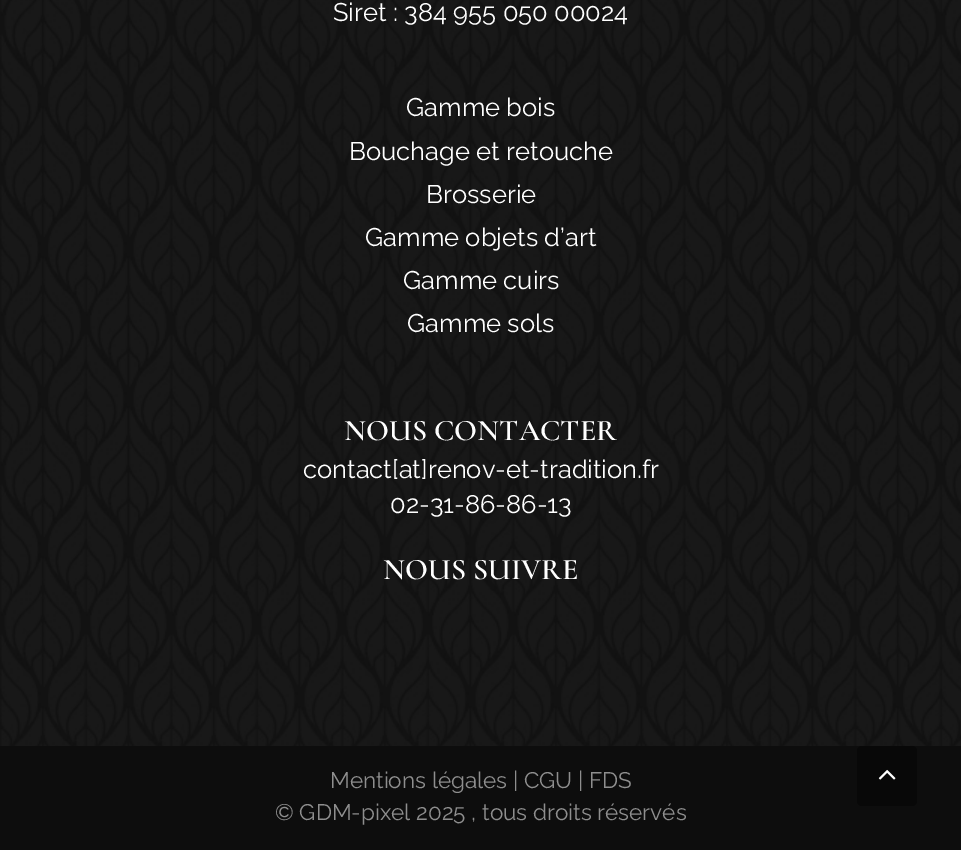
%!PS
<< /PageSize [961 850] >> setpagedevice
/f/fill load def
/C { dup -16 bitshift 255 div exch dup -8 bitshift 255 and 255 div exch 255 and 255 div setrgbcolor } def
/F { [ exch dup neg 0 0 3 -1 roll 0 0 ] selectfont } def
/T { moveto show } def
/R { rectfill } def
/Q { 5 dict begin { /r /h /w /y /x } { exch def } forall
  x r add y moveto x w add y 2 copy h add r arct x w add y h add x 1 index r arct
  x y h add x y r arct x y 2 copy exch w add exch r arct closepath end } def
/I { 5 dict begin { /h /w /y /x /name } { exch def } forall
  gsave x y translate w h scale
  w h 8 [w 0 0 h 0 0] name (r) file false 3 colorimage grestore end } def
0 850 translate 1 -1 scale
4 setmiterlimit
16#FFFFFF C
0 0 961 850 R
(1.rgb) 0 0 961 746 I
/Raleway-Regular 25.5 F
(Siret : 384 955 050 00024) 333 21 T
(Gamme bois) 406 116 T
(Bouchage et retouche) 349 160 T
(Brosserie) 426 203 T
(Gamme objets d’art) 365 246 T
(Gamme cuirs) 403 289 T
(Gamme sols) 407 332 T
/CormorantInfant-SemiBold 30 F
(NOUS CONTACTER) 344 440 T
/Raleway-Regular 25.5 F
(contact[at]renov-et-tradition.fr) 303 478 T
(02-31-86-86-13) 390 513 T
/CormorantInfant-SemiBold 30 F
(NOUS SUIVRE) 383 579 T
16#0D0D0D C
0 746 961 104 R
/Raleway-Regular 22.5 F
16#8E8E8E C
(Mentions légales | CGU | FDS) 330 788 T
(© GDM-pixel 2025 , tous droits réservés) 275 820 T
16#080808 C
857 746 60 60 5 Q f
(2.rgb) 878 769 18 11 I
showpage
